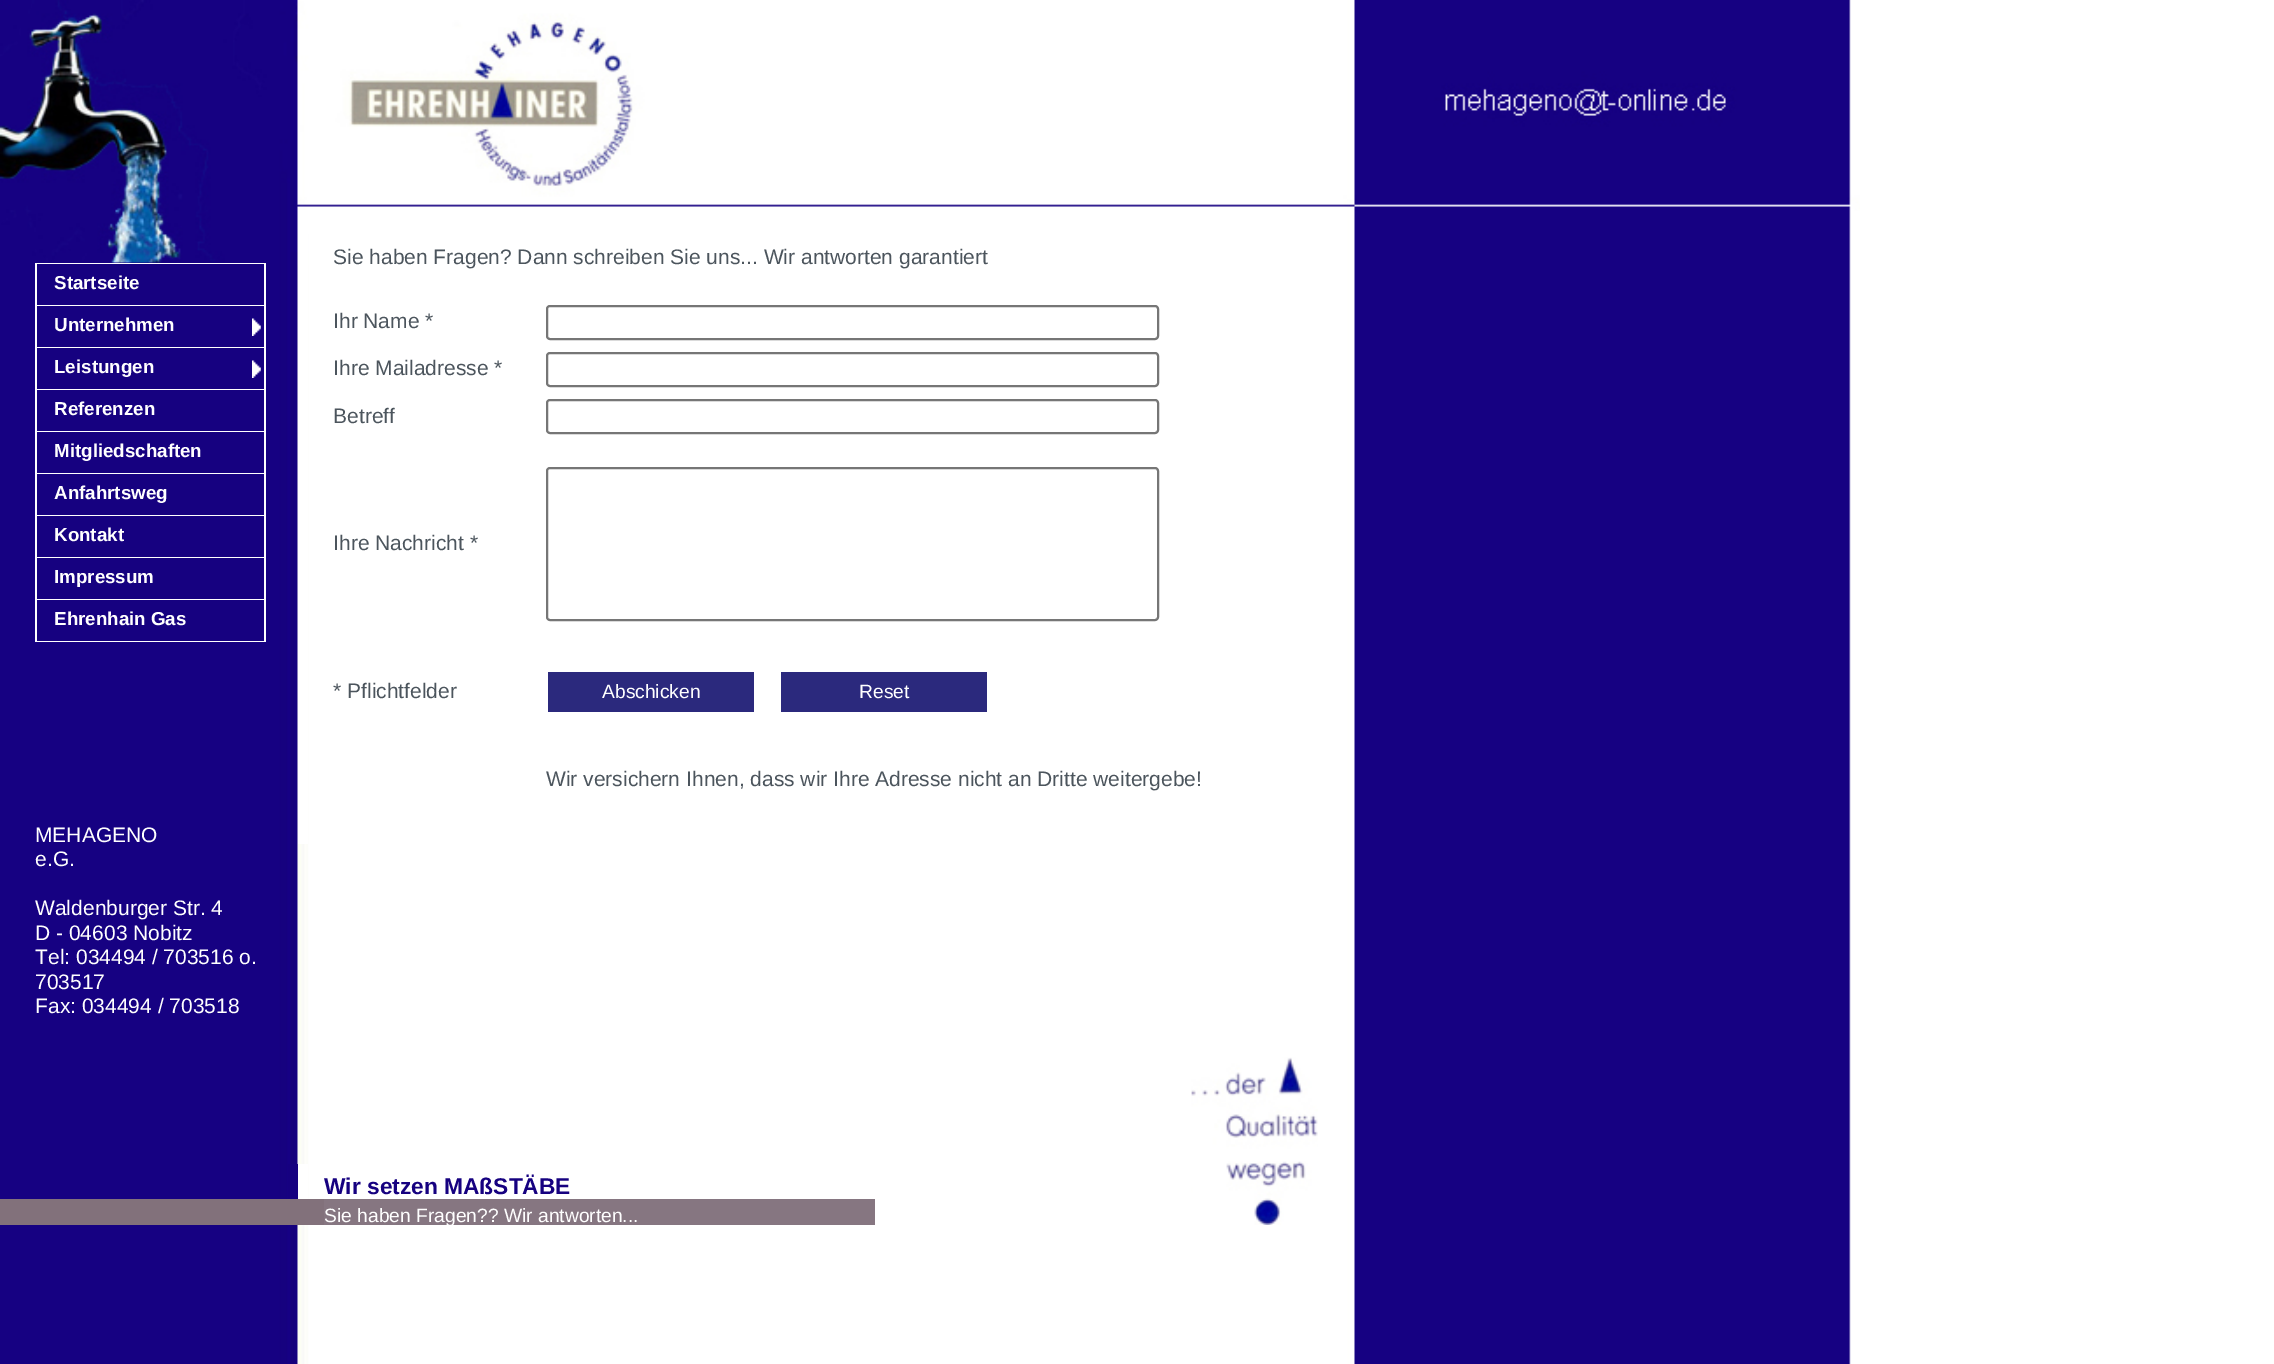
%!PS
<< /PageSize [2274 1364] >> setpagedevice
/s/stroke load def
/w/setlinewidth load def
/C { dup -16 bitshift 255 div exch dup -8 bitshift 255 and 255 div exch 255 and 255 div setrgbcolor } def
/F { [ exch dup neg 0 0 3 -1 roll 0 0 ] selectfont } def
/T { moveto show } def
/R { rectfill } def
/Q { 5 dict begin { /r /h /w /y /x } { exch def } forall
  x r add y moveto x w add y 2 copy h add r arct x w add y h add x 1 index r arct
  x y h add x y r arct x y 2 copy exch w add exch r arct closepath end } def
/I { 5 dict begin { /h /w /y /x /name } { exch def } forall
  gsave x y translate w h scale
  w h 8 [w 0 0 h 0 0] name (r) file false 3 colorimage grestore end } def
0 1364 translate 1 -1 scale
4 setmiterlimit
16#FFFFFF C
0 0 2274 1364 R
(1.rgb) 0 0 1860 1364 I
298 210 10 634 R
/LiberationSans-Regular 21 F
16#4C555D C
(Sie haben Fragen? Dann schreiben Sie uns... Wir antworten garantiert) 333 264 T
(Ihr Name *) 333 328 T
16#767676 C
2 w
547 306 611 33 3 Q s
16#4C555D C
(Ihre Mailadresse *) 333 375 T
16#767676 C
547 353 611 33 3 Q s
16#4C555D C
(Betreff) 333 423 T
16#767676 C
547 400 611 33 3 Q s
16#4C555D C
(Ihre Nachricht *) 333 550 T
16#767676 C
547 468 611 152 3 Q s
16#4C555D C
(* Pflichtfelder) 333 698 T
16#2B297D C
548 672 206 40 R
/LiberationSans-Regular 19.25 F
16#FFFFFF C
(Abschicken) 602 698 T
16#2B297D C
781 672 206 40 R
16#FFFFFF C
(Reset) 859 698 T
/LiberationSans-Regular 21 F
16#4C555D C
(Wir versichern Ihnen, dass wir Ihre Adresse nicht an Dritte weitergebe!) 546 786 T
16#FFFFFF C
(MEHAGENO) 35 842 T
(e.G.) 35 866 T
(Waldenburger Str. 4) 35 915 T
(D - 04603 Nobitz) 35 940 T
(Tel: 034494 / 703516 o.) 35 964 T
(703517) 35 989 T
(Fax: 034494 / 703518) 35 1013 T
35 263 231 379 R
16#160180 C
37 264 227 41 R
/LiberationSans-Bold 18.75 F
16#FFFFFF C
(Startseite) 54 289 T
16#160180 C
37 306 227 41 R
16#FFFFFF C
(Unternehmen) 54 331 T
(2.rgb) 252 318 9 18 I
16#160180 C
37 348 227 41 R
16#FFFFFF C
(Leistungen) 54 373 T
(2.rgb) 252 360 9 18 I
16#160180 C
37 390 227 41 R
16#FFFFFF C
(Referenzen) 54 415 T
16#160180 C
37 432 227 41 R
16#FFFFFF C
(Mitgliedschaften) 54 457 T
16#160180 C
37 474 227 41 R
16#FFFFFF C
(Anfahrtsweg) 54 499 T
16#160180 C
37 516 227 41 R
16#FFFFFF C
(Kontakt) 54 541 T
16#160180 C
37 558 227 41 R
16#FFFFFF C
(Impressum) 54 583 T
16#160180 C
37 600 227 41 R
16#FFFFFF C
(Ehrenhain Gas) 54 625 T
16#160180 C
288 1164 10 35 R
16#FFFFFF C
298 1164 10 35 R
/LiberationSans-Bold 22.75 F
16#160180 C
(Wir setzen MAßSTÄBE) 324 1194 T
16#82717B C
0 1199 324 26 R
16#867681 C
324 1199 551 26 R
/LiberationSans-Regular 19.25 F
16#FFFFFF C
(Sie haben Fragen?? Wir antworten...) 324 1222 T
(3.rgb) 1191 1057 127 168 I
showpage
